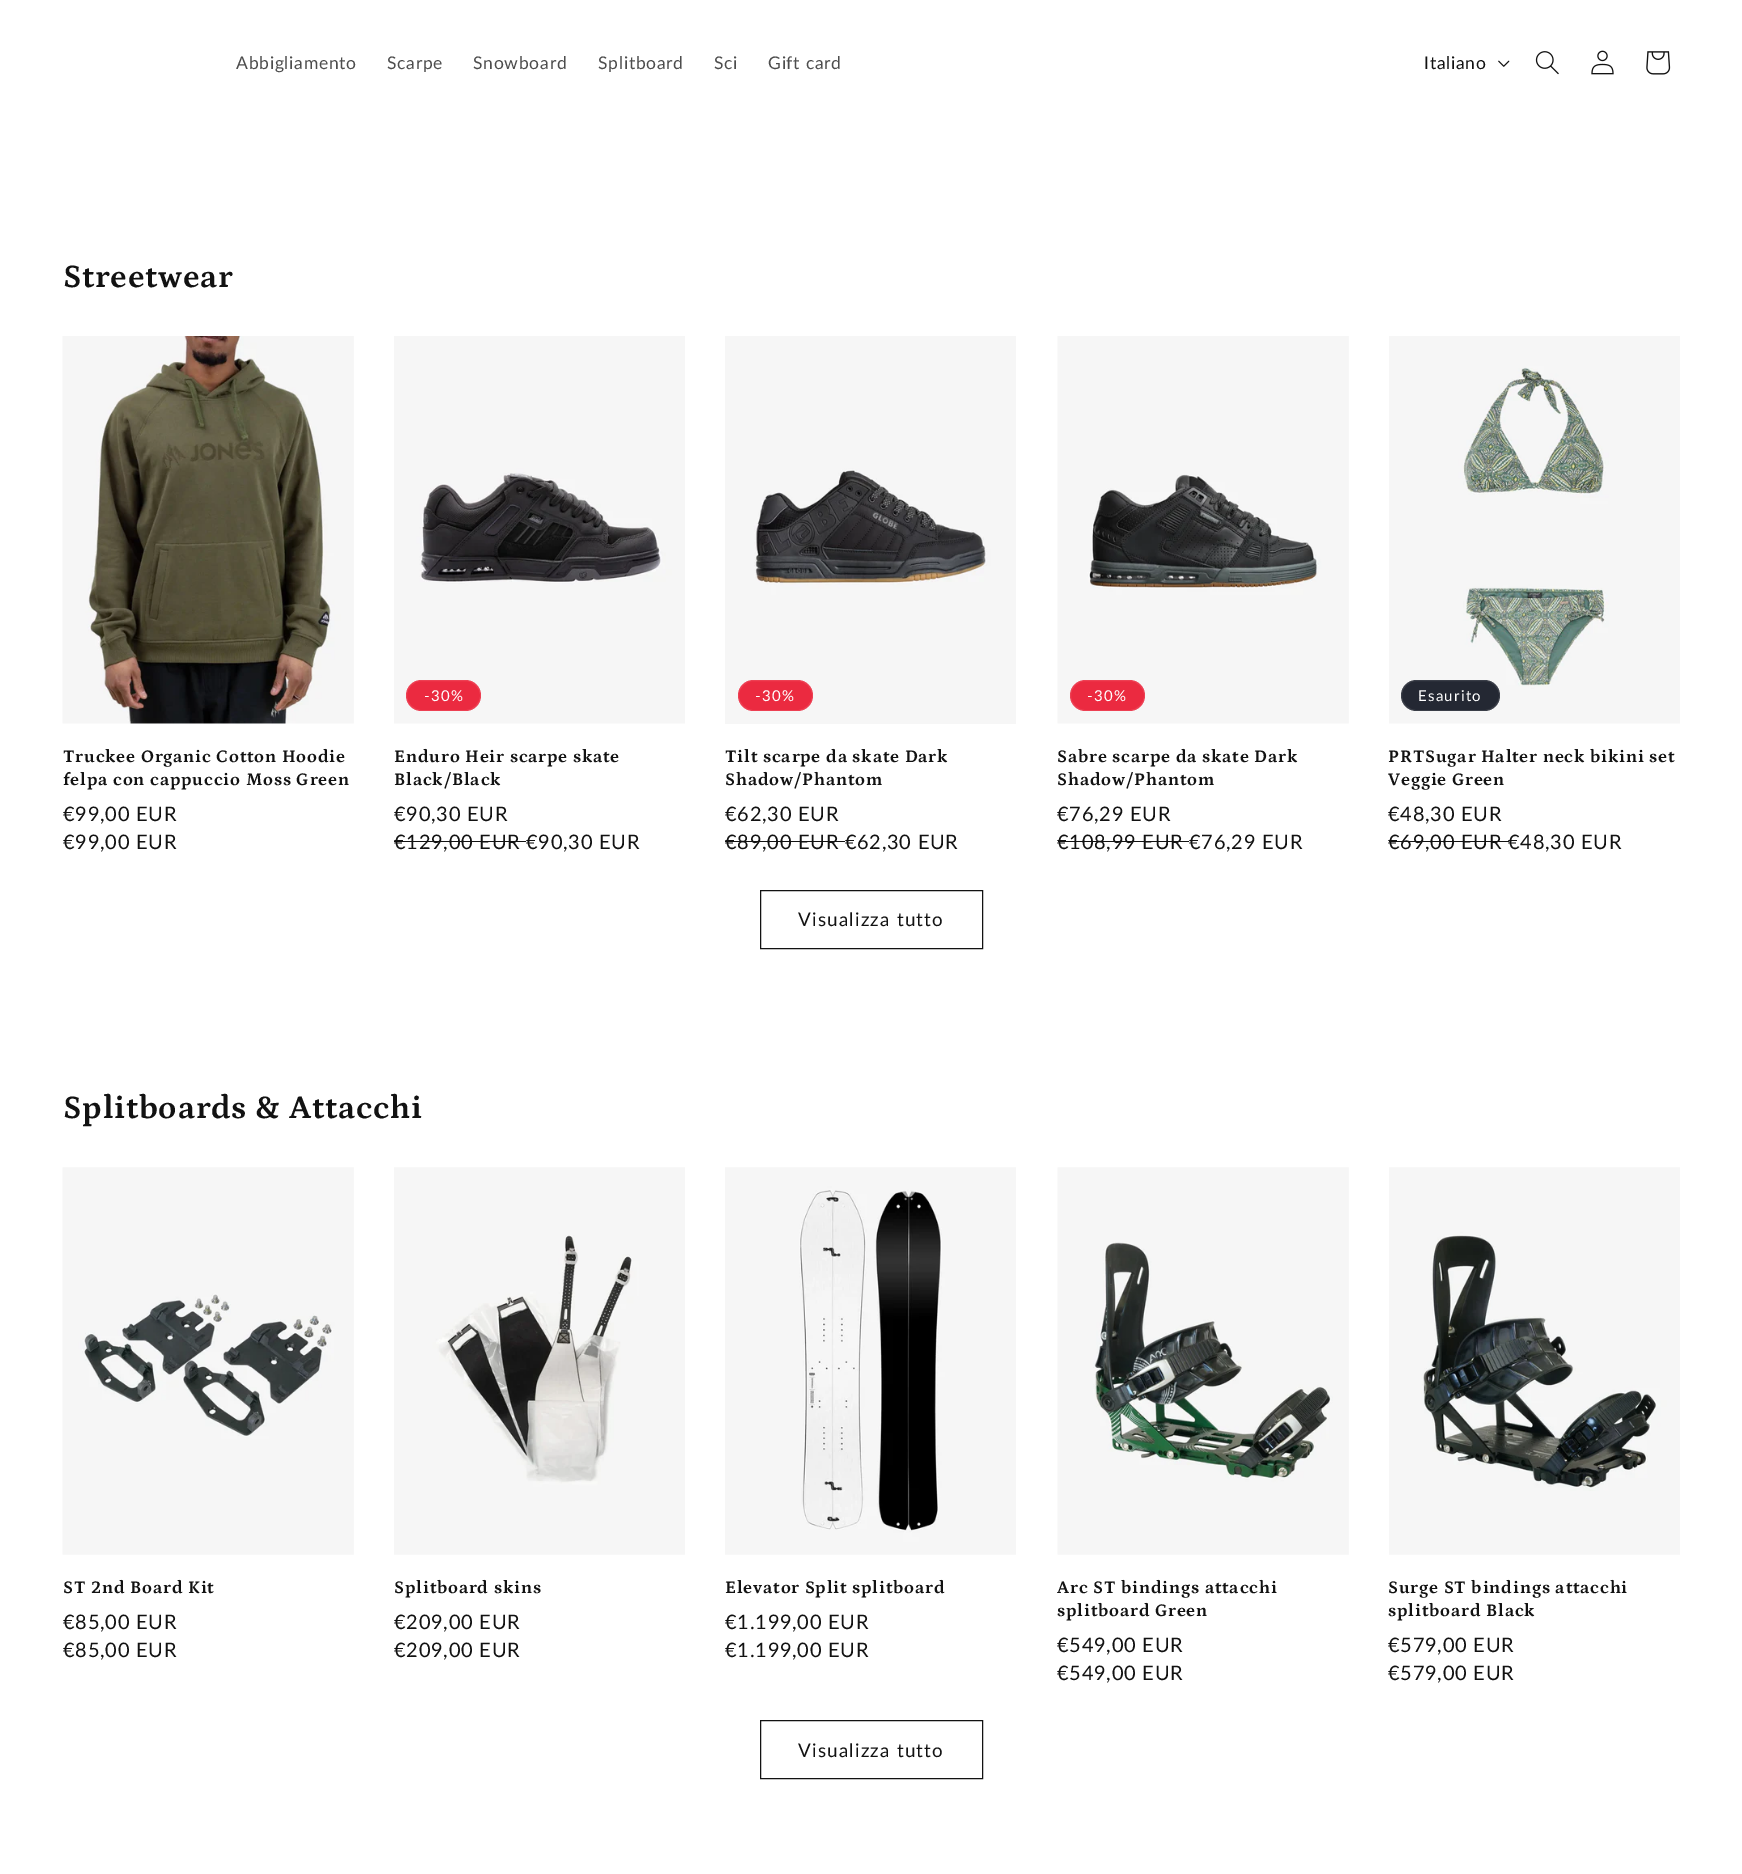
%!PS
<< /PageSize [1742 1874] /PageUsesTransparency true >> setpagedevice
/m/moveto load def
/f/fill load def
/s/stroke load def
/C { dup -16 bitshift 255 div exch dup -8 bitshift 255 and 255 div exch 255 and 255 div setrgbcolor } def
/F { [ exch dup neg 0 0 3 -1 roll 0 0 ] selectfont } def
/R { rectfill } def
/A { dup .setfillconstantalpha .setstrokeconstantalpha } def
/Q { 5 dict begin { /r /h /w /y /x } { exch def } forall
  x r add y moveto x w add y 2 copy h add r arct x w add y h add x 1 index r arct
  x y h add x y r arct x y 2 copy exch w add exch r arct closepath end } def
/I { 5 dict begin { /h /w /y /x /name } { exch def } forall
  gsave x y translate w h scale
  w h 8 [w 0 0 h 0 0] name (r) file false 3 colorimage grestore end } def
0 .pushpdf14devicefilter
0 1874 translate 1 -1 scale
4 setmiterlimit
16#FFFFFF C
0 0 1742 1874 R
/Lato-Regular 17.5 F
16#4D4D4D C
236 69 m .75 0 (Abbigliamento) ashow
387 69 m .75 0 (Scarpe) ashow
473 69 m .75 0 (Snowboard) ashow
598 69 m .75 0 (Splitboard) ashow
714 69 m .75 0 (Sci) ashow
768 69 m .75 0 (Gift card) ashow
16#121212 C
1424 69 m .75 0 (Italiano) ashow
(1.rgb) 1498 60 12 7 I
(2.rgb) 1535 51 24 24 I
(3.rgb) 1591 50 23 25 I
(4.rgb) 1646 51 25 24 I
/Petrona-Bold 33 F
63 287 m .8 0 (Streetwear) ashow
(5.rgb) 62 336 292 388 I
/Petrona-Bold 17.9 F
63 762 m .8 0 (Truckee Organic Cotton Hoodie) ashow
63 785 m .8 0 (felpa con cappuccio Moss Green) ashow
/Lato-Regular 20 F
63 821 m .75 0 (€99,00 EUR) ashow
63 849 m .75 0 (€99,00 EUR) ashow
(6.rgb) 394 336 291 388 I
16#EB2A40 C
406 680 75 31 15.5 Q f
0.1 A
16#FFFFFF C
406.5 680.5 74 30 15 Q s
/Lato-Regular 15 F
1 A
424 701 m 1.25 0 (-30%) ashow
/Petrona-Bold 17.9 F
16#121212 C
394 762 m .8 0 (Enduro Heir scarpe skate) ashow
394 785 m .8 0 (Black/Black) ashow
/Lato-Regular 20 F
394 821 m .75 0 (€90,30 EUR) ashow
394 849 m .75 0 (€129,00 EUR €90,30 EUR) ashow
394 841 132 1 R
(7.rgb) 725 336 291 388 I
16#EB2A40 C
738 680 75 31 15.5 Q f
0.1 A
16#FFFFFF C
738.5 680.5 74 30 15 Q s
/Lato-Regular 15 F
1 A
755 701 m 1.25 0 (-30%) ashow
/Petrona-Bold 17.9 F
16#121212 C
725 762 m .8 0 (Tilt scarpe da skate Dark) ashow
725 785 m .8 0 (Shadow/Phantom) ashow
/Lato-Regular 20 F
725 821 m .75 0 (€62,30 EUR) ashow
725 849 m .75 0 (€89,00 EUR €62,30 EUR) ashow
725 841 120 1 R
(8.rgb) 1057 336 292 388 I
16#EB2A40 C
1070 680 75 31 15.5 Q f
0.1 A
16#FFFFFF C
1070.5 680.5 74 30 15 Q s
/Lato-Regular 15 F
1 A
1087 701 m 1.25 0 (-30%) ashow
/Petrona-Bold 17.9 F
16#121212 C
1057 762 m .8 0 (Sabre scarpe da skate Dark) ashow
1057 785 m .8 0 (Shadow/Phantom) ashow
/Lato-Regular 20 F
1057 821 m .75 0 (€76,29 EUR) ashow
1057 849 m .75 0 (€108,99 EUR €76,29 EUR) ashow
1058 841 131 1 R
(9.rgb) 1389 336 291 388 I
16#242833 C
1401 680 99 31 15.5 Q f
0.1 A
16#FFFFFF C
1401.5 680.5 98 30 15 Q s
/Lato-Regular 15 F
1 A
1418 701 m 1.25 0 (Esaurito) ashow
/Petrona-Bold 17.9 F
16#121212 C
1388 762 m .8 0 (PRTSugar Halter neck bikini set) ashow
1388 785 m .8 0 (Veggie Green) ashow
/Lato-Regular 20 F
1388 821 m .75 0 (€48,30 EUR) ashow
1388 849 m .75 0 (€69,00 EUR) ashow
1389 841 120 1 R
1508 849 m .75 0 (€48,30 EUR) ashow
760.5 890.5 222 58 rectstroke
/Lato-Regular 18.75 F
798 926 m 1.25 0 (Visualizza tutto) ashow
/Petrona-Bold 33 F
63 1118 m .8 0 (Splitboards & Attacchi) ashow
(10.rgb) 62 1167 292 388 I
/Petrona-Bold 17.9 F
63 1593 m .8 0 (ST 2nd Board Kit) ashow
/Lato-Regular 20 F
63 1629 m .75 0 (€85,00 EUR) ashow
63 1657 m .75 0 (€85,00 EUR) ashow
(11.rgb) 394 1167 291 388 I
/Petrona-Bold 17.9 F
394 1593 m .8 0 (Splitboard skins) ashow
/Lato-Regular 20 F
394 1629 m .75 0 (€209,00 EUR) ashow
394 1657 m .75 0 (€209,00 EUR) ashow
(12.rgb) 725 1167 291 388 I
/Petrona-Bold 17.9 F
725 1593 m .8 0 (Elevator Split splitboard) ashow
/Lato-Regular 20 F
725 1629 m .75 0 (€1.199,00 EUR) ashow
725 1657 m .75 0 (€1.199,00 EUR) ashow
(13.rgb) 1057 1167 292 388 I
/Petrona-Bold 17.9 F
1057 1593 m .8 0 (Arc ST bindings attacchi) ashow
1057 1616 m .8 0 (splitboard Green) ashow
/Lato-Regular 20 F
1057 1652 m .75 0 (€549,00 EUR) ashow
1057 1680 m .75 0 (€549,00 EUR) ashow
(14.rgb) 1389 1167 291 388 I
/Petrona-Bold 17.9 F
1388 1593 m .8 0 (Surge ST bindings attacchi) ashow
1388 1616 m .8 0 (splitboard Black) ashow
/Lato-Regular 20 F
1388 1652 m .75 0 (€579,00 EUR) ashow
1388 1680 m .75 0 (€579,00 EUR) ashow
760.5 1720.5 222 58 rectstroke
/Lato-Regular 18.75 F
798 1757 m 1.25 0 (Visualizza tutto) ashow
.poppdf14devicefilter showpage
